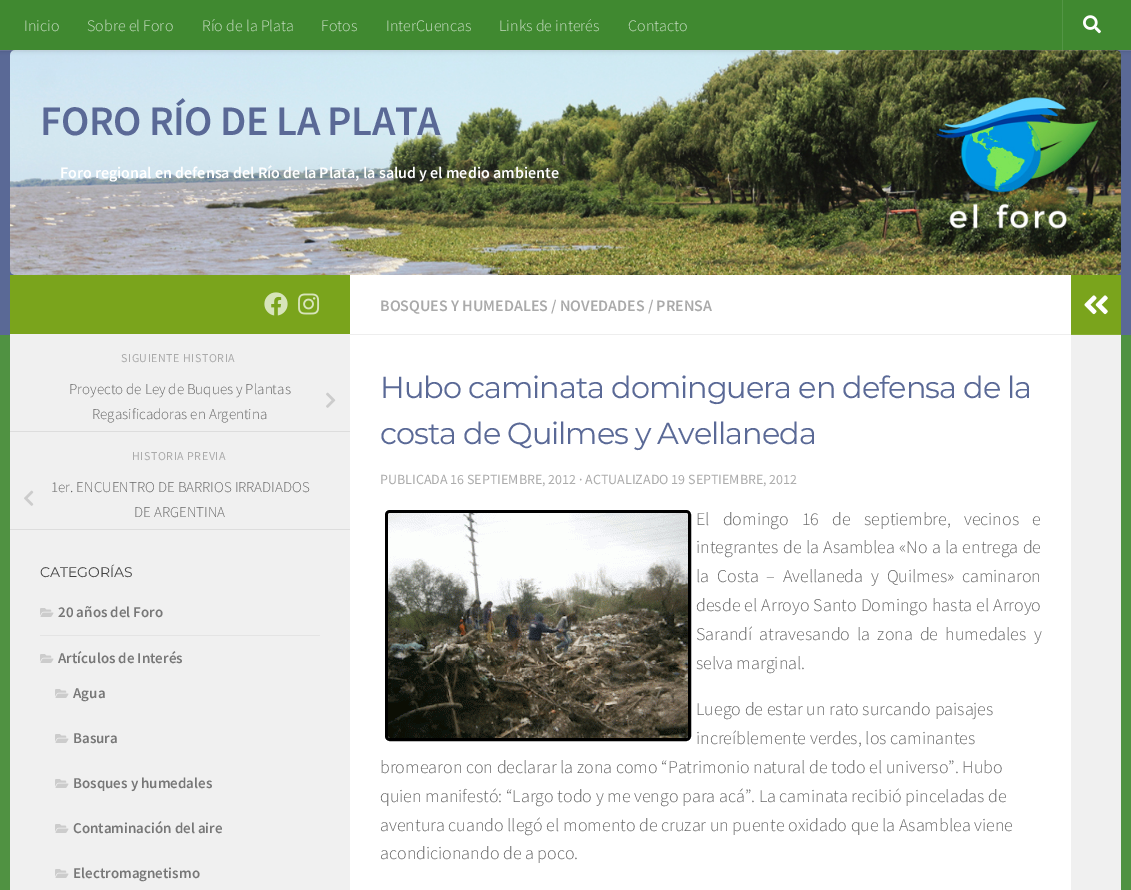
%!PS
<< /PageSize [1131 890] /PageUsesTransparency true >> setpagedevice
/m/moveto load def
/s/stroke load def
/w/setlinewidth load def
/C { dup -16 bitshift 255 div exch dup -8 bitshift 255 and 255 div exch 255 and 255 div setrgbcolor } def
/F { [ exch dup neg 0 0 3 -1 roll 0 0 ] selectfont } def
/T { moveto show } def
/R { rectfill } def
/A { dup .setfillconstantalpha .setstrokeconstantalpha } def
/Q { 5 dict begin { /r /h /w /y /x } { exch def } forall
  x r add y moveto x w add y 2 copy h add r arct x w add y h add x 1 index r arct
  x y h add x y r arct x y 2 copy exch w add exch r arct closepath end } def
/S { 12 dict begin { /a /b /q /h /w /y /x } { exch def } forall gsave /was 0 def
  9 -2 -9 { dup b mul 4 div /e exch def 1 sub .425 mul 2.718 exch exp 1 add a .99 .min exch div /now exch def
    1 1 now sub 1 was sub div sub A /was now def
    w h .min e 2 mul add 0 gt { x e sub y e sub w e 2 mul add h e 2 mul add
      q e add b .6 mul add w h .min 2 div e add .min 0 .max Q fill } if } for grestore end } def
/I { 5 dict begin { /h /w /y /x /name } { exch def } forall
  gsave x y translate w h scale
  w h 8 [w 0 0 h 0 0] name (r) file false 3 colorimage grestore end } def
0 .pushpdf14devicefilter
0 890 translate 1 -1 scale
4 setmiterlimit
16#509242 C
0 0 1131 890 R
16#5A6996 C
0 50 1131 285 R
(2.rgb) 10 50 1111 225 I
0.15 A
16#FFFFFF C
0 50 1131 1 R
1 A
16#000000 C
0 0 1131 50 0 2.5 .2 S
16#408930 C
0 0 1131 50 R
/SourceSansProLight-Light 16 F
16#C6DCC1 C
(Inicio) 24 31 T
(Sobre el Foro) 87 31 T
(Río de la Plata) 202 31 T
(Fotos) 321 31 T
(InterCuencas) 386 31 T
(Links de interés) 499 31 T
(Contacto) 628 31 T
16#539545 C
1062 0 1 50 R
(1.rgb) 1083 15 18 19 I
/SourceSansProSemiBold-SemiBold 42 F
16#5A6996 C
40 135 m -.5 0 (FORO RÍO DE LA PLATA) ashow
/SourceSansProSemiBold-SemiBold 16 F
16#FFFFFF C
(Foro regional en defensa del Río de la Plata, la salud y el medio ambiente) 60 178 T
350 275 721 615 R
16#7AA41C C
10 275 340 59 R
(3.rgb) 264 292 24 24 I
(4.rgb) 298 293 22 22 I
16#F0F0F0 C
10 334 340 556 R
/SourceSansPro-Regular 12 F
16#AAAAAA C
121 362 m .5 0 (SIGUIENTE HISTORIA) ashow
16#DDDDDD C
10 431 340 1 R
/SourceSansProLight-Light 15 F
16#666666 C
(Proyecto de Ley de Buques y Plantas) 69 394 T
(5.rgb) 326 392 10 16 I
(Regasificadoras en Argentina) 92 419 T
/SourceSansPro-Regular 12 F
16#AAAAAA C
132 460 m .5 0 (HISTORIA PREVIA) ashow
16#DDDDDD C
10 529 340 1 R
/SourceSansProLight-Light 15 F
16#666666 C
(1er. ENCUENTRO DE BARRIOS IRRADIADOS) 51 492 T
(6.rgb) 24 490 10 16 I
(DE ARGENTINA) 134 517 T
/Montserrat-Regular 14 F
16#444444 C
(CATEGORÍAS) 40 577 T
16#E4E4E4 C
40 635 280 1 R
(7.rgb) 40 608 14 9 I
/SourceSansProSemiBold-SemiBold 15 F
16#777777 C
(20 años del Foro) 58 617 T
(7.rgb) 40 654 14 9 I
(Artículos de Interés) 58 663 T
(7.rgb) 55 689 14 9 I
(Agua) 73 698 T
(7.rgb) 55 734 14 9 I
(Basura) 73 743 T
(7.rgb) 55 779 14 9 I
(Bosques y humedales) 73 788 T
(7.rgb) 55 824 14 9 I
(Contaminación del aire) 73 833 T
(7.rgb) 55 869 14 9 I
(Electromagnetismo) 73 878 T
16#EEEEEE C
350 334 721 1 R
/SourceSansProSemiBold-SemiBold 16 F
16#AAAAAA C
(BOSQUES Y HUMEDALES / NOVEDADES / PRENSA) 380 311 T
/Montserrat-Regular 30.4 F
16#5A6996 C
380 398 m -1 0 (Hubo caminata dominguera en defensa de la) ashow
380 444 m -1 0 (costa de Quilmes y Avellaneda) ashow
/SourceSansPro-Regular 14 F
16#AAAAAA C
(PUBLICADA 16 SEPTIEMBRE, 2012 · ACTUALIZADO 19 SEPTIEMBRE, 2012) 380 484 T
16#000000 C
3 w
386.5 511.5 303 228 3.5 Q s
(8.rgb) 388 513 300 225 I
/SourceSansProLight-Light 18 F
16#666666 C
696 525 m 9.5 0 32 (El domingo 16 de septiembre, vecinos e) widthshow
696 553 m .75 0 32 (integrantes de la Asamblea «No a la entrega de) widthshow
696 582 m 4.25 0 32 (la Costa – Avellaneda y Quilmes» caminaron) widthshow
696 611 m .5 0 32 (desde el Arroyo Santo Domingo hasta el Arroyo) widthshow
696 640 m 3.5 0 32 (Sarandí atravesando la zona de humedales y) widthshow
(selva marginal.) 696 669 T
(Luego de estar un rato surcando paisajes) 696 715 T
(increíblemente verdes, los caminantes) 696 744 T
(bromearon con declarar la zona como “Patrimonio natural de todo el universo”. Hubo) 380 773 T
(quien manifestó: “Largo todo y me vengo para acá”. La caminata recibió pinceladas de) 380 802 T
(aventura cuando llegó el momento de cruzar un puente oxidado que la Asamblea viene) 380 831 T
(acondicionando de a poco.) 380 859 T
16#7AA41C C
1071 275 50 59 R
16#87AD33 C
1071 334 50 1 R
(9.rgb) 1084 295 24 20 I
16#F0F0F0 C
1071 335 50 555 R
.poppdf14devicefilter showpage
